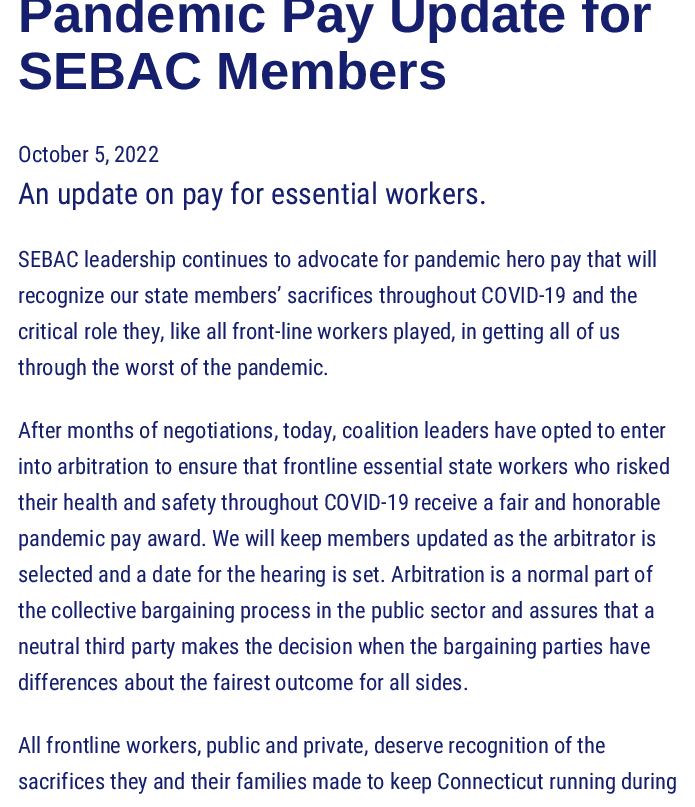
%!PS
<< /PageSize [695 807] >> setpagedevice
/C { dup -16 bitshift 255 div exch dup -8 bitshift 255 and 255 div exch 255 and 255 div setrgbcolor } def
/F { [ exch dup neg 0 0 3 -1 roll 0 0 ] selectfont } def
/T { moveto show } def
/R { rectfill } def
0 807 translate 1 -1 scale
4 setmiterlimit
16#FFFFFF C
0 0 695 807 R
/LiberationSans-Bold 52.5 F
16#151F6D C
(Pandemic Pay Update for) 18 32 T
(SEBAC Members) 18 89 T
/RobotoCondensed-Regular 22.5 F
(October 5, 2022) 18 162 T
/RobotoCondensed-Regular 30 F
(An update on pay for essential workers.) 18 204 T
/RobotoCondensed-Regular 22.5 F
(SEBAC leadership continues to advocate for pandemic hero pay that will) 18 267 T
(recognize our state members’ sacrifices throughout COVID-19 and the) 18 303 T
(critical role they, like all front-line workers played, in getting all of us) 18 339 T
(through the worst of the pandemic.) 18 375 T
(After months of negotiations, today, coalition leaders have opted to enter) 18 438 T
(into arbitration to ensure that frontline essential state workers who risked) 18 474 T
(their health and safety throughout COVID-19 receive a fair and honorable) 18 510 T
(pandemic pay award. We will keep members updated as the arbitrator is) 18 546 T
(selected and a date for the hearing is set. Arbitration is a normal part of) 18 582 T
(the collective bargaining process in the public sector and assures that a) 18 618 T
(neutral third party makes the decision when the bargaining parties have) 18 654 T
(differences about the fairest outcome for all sides.) 18 690 T
(All frontline workers, public and private, deserve recognition of the) 18 753 T
(sacrifices they and their families made to keep Connecticut running during) 18 789 T
showpage
